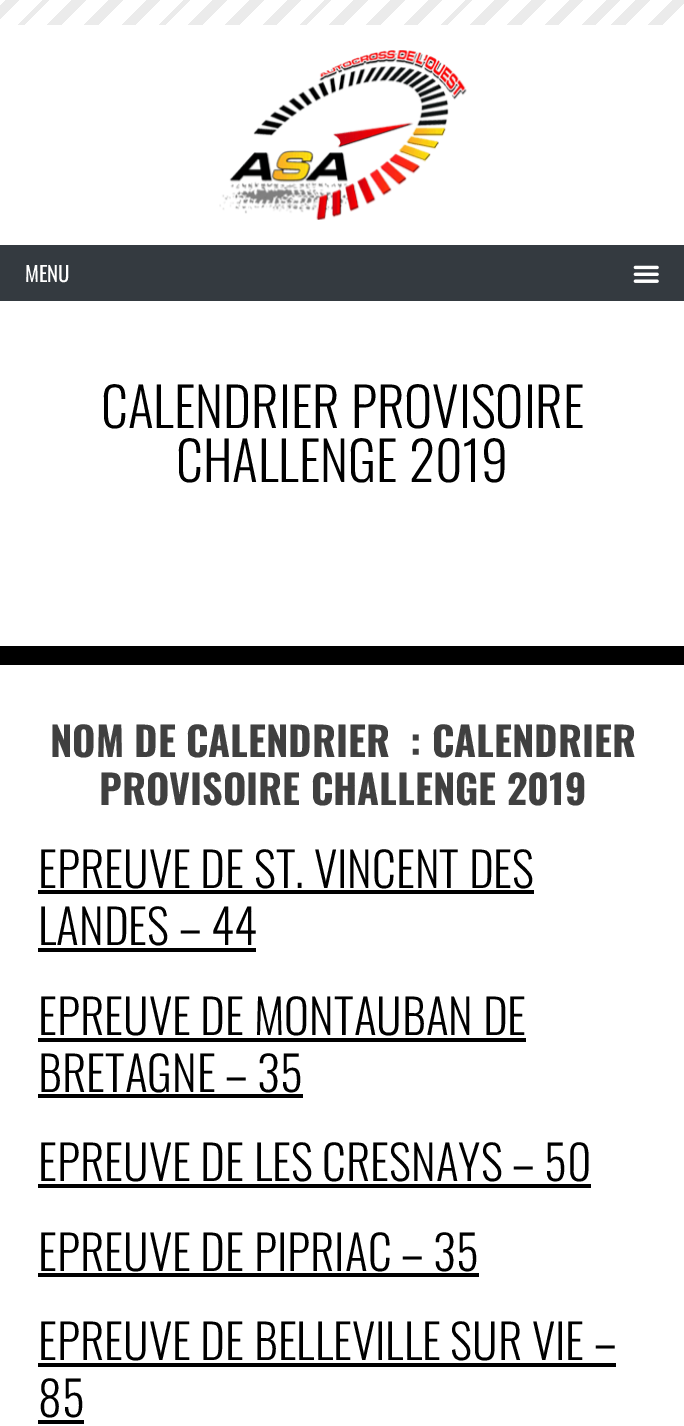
%!PS
<< /PageSize [684 1426] >> setpagedevice
/m/moveto load def
/l/rlineto load def
/z/closepath load def
/q/gsave load def
/Q_/grestore load def
/C { dup -16 bitshift 255 div exch dup -8 bitshift 255 and 255 div exch 255 and 255 div setrgbcolor } def
/F { [ exch dup neg 0 0 3 -1 roll 0 0 ] selectfont } def
/T { moveto show } def
/R { rectfill } def
/I { 5 dict begin { /h /w /y /x /name } { exch def } forall
  gsave x y translate w h scale
  w h 8 [w 0 0 h 0 0] name (r) file false 3 colorimage grestore end } def
0 1426 translate 1 -1 scale
4 setmiterlimit
16#FFFFFF C
0 0 684 1426 R
q 0 0 m 684 0 l 0 25 l -684 0 l z clip newpath
<< /ShadingType 2 /ColorSpace /DeviceRGB /Coords [520 190 149 -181] /Extend [true true] /Function << /FunctionType 3 /Domain [0 1] /Functions [<< /FunctionType 2 /Domain [0 1] /C0 [1 1 1] /C1 [1 1 1] /N 1 >> << /FunctionType 2 /Domain [0 1] /C0 [.922 .922 .922] /C1 [.922 .922 .922] /N 1 >> << /FunctionType 2 /Domain [0 1] /C0 [1 1 1] /C1 [1 1 1] /N 1 >> << /FunctionType 2 /Domain [0 1] /C0 [.922 .922 .922] /C1 [.922 .922 .922] /N 1 >> << /FunctionType 2 /Domain [0 1] /C0 [1 1 1] /C1 [1 1 1] /N 1 >> << /FunctionType 2 /Domain [0 1] /C0 [.922 .922 .922] /C1 [.922 .922 .922] /N 1 >> << /FunctionType 2 /Domain [0 1] /C0 [1 1 1] /C1 [1 1 1] /N 1 >> << /FunctionType 2 /Domain [0 1] /C0 [.922 .922 .922] /C1 [.922 .922 .922] /N 1 >> << /FunctionType 2 /Domain [0 1] /C0 [1 1 1] /C1 [1 1 1] /N 1 >> << /FunctionType 2 /Domain [0 1] /C0 [.922 .922 .922] /C1 [.922 .922 .922] /N 1 >> << /FunctionType 2 /Domain [0 1] /C0 [1 1 1] /C1 [1 1 1] /N 1 >> << /FunctionType 2 /Domain [0 1] /C0 [.922 .922 .922] /C1 [.922 .922 .922] /N 1 >> << /FunctionType 2 /Domain [0 1] /C0 [1 1 1] /C1 [1 1 1] /N 1 >> << /FunctionType 2 /Domain [0 1] /C0 [.922 .922 .922] /C1 [.922 .922 .922] /N 1 >> << /FunctionType 2 /Domain [0 1] /C0 [1 1 1] /C1 [1 1 1] /N 1 >> << /FunctionType 2 /Domain [0 1] /C0 [.922 .922 .922] /C1 [.922 .922 .922] /N 1 >> << /FunctionType 2 /Domain [0 1] /C0 [1 1 1] /C1 [1 1 1] /N 1 >> << /FunctionType 2 /Domain [0 1] /C0 [.922 .922 .922] /C1 [.922 .922 .922] /N 1 >> << /FunctionType 2 /Domain [0 1] /C0 [1 1 1] /C1 [1 1 1] /N 1 >> << /FunctionType 2 /Domain [0 1] /C0 [.922 .922 .922] /C1 [.922 .922 .922] /N 1 >> << /FunctionType 2 /Domain [0 1] /C0 [1 1 1] /C1 [1 1 1] /N 1 >> << /FunctionType 2 /Domain [0 1] /C0 [.922 .922 .922] /C1 [.922 .922 .922] /N 1 >> << /FunctionType 2 /Domain [0 1] /C0 [1 1 1] /C1 [1 1 1] /N 1 >> << /FunctionType 2 /Domain [0 1] /C0 [.922 .922 .922] /C1 [.922 .922 .922] /N 1 >> << /FunctionType 2 /Domain [0 1] /C0 [1 1 1] /C1 [1 1 1] /N 1 >> << /FunctionType 2 /Domain [0 1] /C0 [.922 .922 .922] /C1 [.922 .922 .922] /N 1 >> << /FunctionType 2 /Domain [0 1] /C0 [1 1 1] /C1 [1 1 1] /N 1 >> << /FunctionType 2 /Domain [0 1] /C0 [.922 .922 .922] /C1 [.922 .922 .922] /N 1 >> << /FunctionType 2 /Domain [0 1] /C0 [1 1 1] /C1 [1 1 1] /N 1 >> << /FunctionType 2 /Domain [0 1] /C0 [.922 .922 .922] /C1 [.922 .922 .922] /N 1 >> << /FunctionType 2 /Domain [0 1] /C0 [1 1 1] /C1 [1 1 1] /N 1 >> << /FunctionType 2 /Domain [0 1] /C0 [.922 .922 .922] /C1 [.922 .922 .922] /N 1 >> << /FunctionType 2 /Domain [0 1] /C0 [1 1 1] /C1 [1 1 1] /N 1 >> << /FunctionType 2 /Domain [0 1] /C0 [.922 .922 .922] /C1 [.922 .922 .922] /N 1 >> << /FunctionType 2 /Domain [0 1] /C0 [1 1 1] /C1 [1 1 1] /N 1 >> << /FunctionType 2 /Domain [0 1] /C0 [.922 .922 .922] /C1 [.922 .922 .922] /N 1 >> << /FunctionType 2 /Domain [0 1] /C0 [1 1 1] /C1 [1 1 1] /N 1 >> << /FunctionType 2 /Domain [0 1] /C0 [.922 .922 .922] /C1 [.922 .922 .922] /N 1 >> << /FunctionType 2 /Domain [0 1] /C0 [1 1 1] /C1 [1 1 1] /N 1 >> << /FunctionType 2 /Domain [0 1] /C0 [.922 .922 .922] /C1 [.922 .922 .922] /N 1 >> << /FunctionType 2 /Domain [0 1] /C0 [1 1 1] /C1 [1 1 1] /N 1 >> << /FunctionType 2 /Domain [0 1] /C0 [.922 .922 .922] /C1 [.922 .922 .922] /N 1 >>] /Bounds [.03 .05 .08 .1 .12 .14 .17 .19 .22 .24 .27 .29 .32 .33 .36 .38 .41 .43 .46 .48 .51 .52 .55 .57 .6 .62 .65 .67 .7 .71 .74 .76 .79 .81 .84 .86 .89 .9 .93 .95 .98] /Encode [0 1 0 1 0 1 0 1 0 1 0 1 0 1 0 1 0 1 0 1 0 1 0 1 0 1 0 1 0 1 0 1 0 1 0 1 0 1 0 1 0 1 0 1 0 1 0 1 0 1 0 1 0 1 0 1 0 1 0 1 0 1 0 1 0 1 0 1 0 1 0 1 0 1 0 1 0 1 0 1 0 1 0 1] >> >> shfill Q_
(1.rgb) 219 50 248 170 I
16#343A40 C
0 245 684 56 R
/Oswald-Regular 21 F
16#FFFFFF C
(MENU) 25 282 T
(2.rgb) 633 265 26 18 I
16#000000 C
0 646 684 19 R
/Oswald-Light 53.75 F
(CALENDRIER PROVISOIRE) 101 428 T
(CHALLENGE 2019) 176 482 T
/Oswald-Bold 40 F
16#404040 C
(NOM DE CALENDRIER  : CALENDRIER) 50 757 T
(PROVISOIRE CHALLENGE 2019) 99 805 T
/Oswald-Light 47.5 F
16#000000 C
(EPREUVE DE ST. VINCENT DES) 38 888 T
38 890 496 4 R
(LANDES – 44) 38 945 T
38 948 218 4 R
(EPREUVE DE MONTAUBAN DE) 38 1035 T
38 1038 488 4 R
(BRETAGNE – 35) 38 1092 T
38 1094 265 4 R
(EPREUVE DE LES CRESNAYS – 50) 38 1181 T
38 1184 553 4 R
(EPREUVE DE PIPRIAC – 35) 38 1271 T
38 1273 441 4 R
(EPREUVE DE BELLEVILLE SUR VIE –) 38 1360 T
38 1363 578 4 R
(85) 38 1417 T
38 1420 46 4 R
showpage
